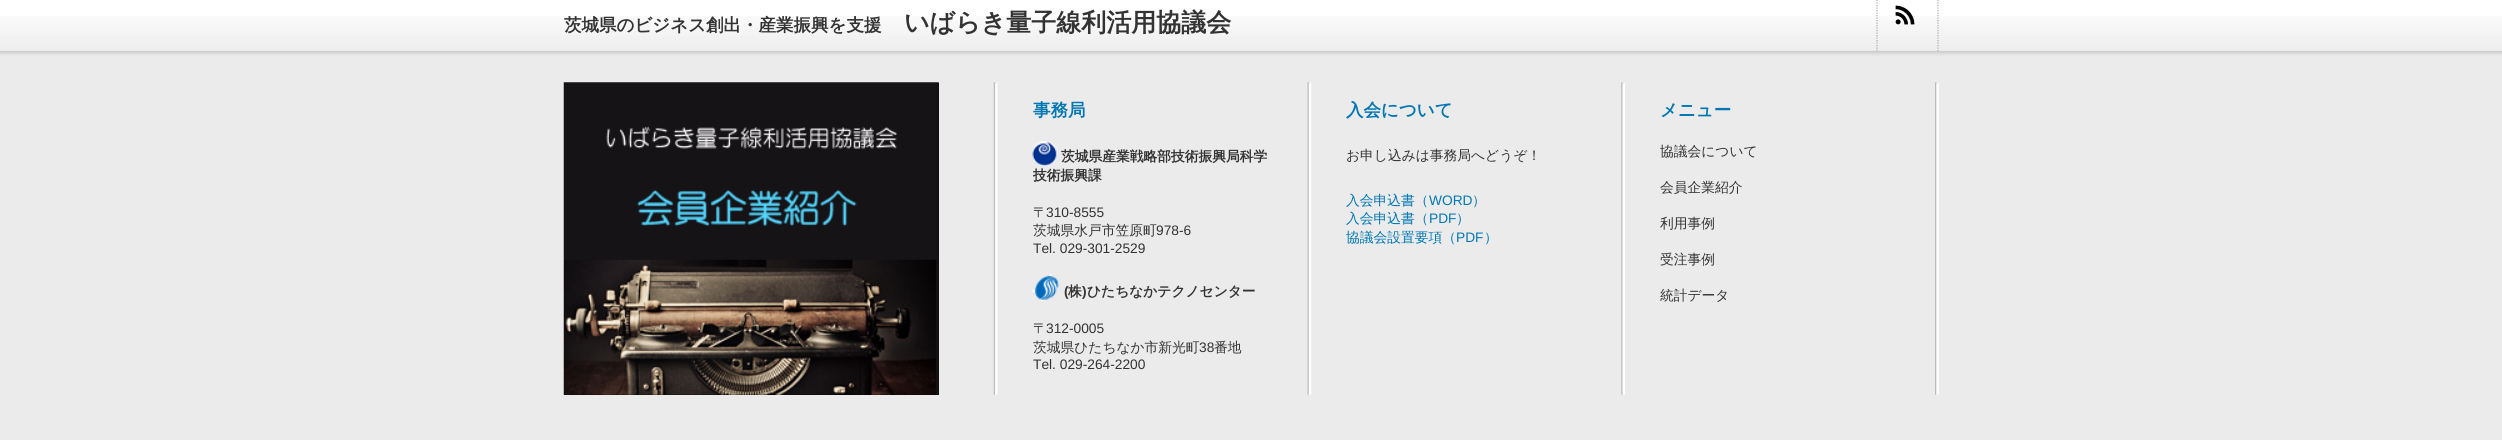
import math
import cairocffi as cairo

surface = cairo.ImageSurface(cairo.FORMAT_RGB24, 2502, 440)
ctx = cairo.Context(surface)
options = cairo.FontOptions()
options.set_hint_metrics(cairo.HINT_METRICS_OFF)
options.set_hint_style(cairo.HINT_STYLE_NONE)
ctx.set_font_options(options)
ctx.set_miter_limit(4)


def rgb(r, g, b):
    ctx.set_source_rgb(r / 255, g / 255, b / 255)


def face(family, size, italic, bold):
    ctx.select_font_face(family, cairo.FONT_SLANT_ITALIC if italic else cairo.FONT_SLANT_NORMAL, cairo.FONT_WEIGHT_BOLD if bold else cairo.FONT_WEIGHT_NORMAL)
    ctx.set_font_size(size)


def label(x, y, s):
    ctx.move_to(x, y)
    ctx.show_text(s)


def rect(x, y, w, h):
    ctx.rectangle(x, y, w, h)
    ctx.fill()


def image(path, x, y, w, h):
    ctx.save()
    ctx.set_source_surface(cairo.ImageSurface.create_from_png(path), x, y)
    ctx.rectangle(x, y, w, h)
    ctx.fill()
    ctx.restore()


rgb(255, 255, 255)
ctx.paint()
image('image0.png', 0, 16, 2502, 67)
face('WenQuanYi Zen Hei', 17.5, 0, 1)
rgb(51, 51, 51)
label(564, 31, '茨城県のビジネス創出・産業振興を支援')
face('WenQuanYi Zen Hei', 25, 0, 1)
label(904, 31, 'いばらき量子線利活用協議会')
ctx.new_path()
ctx.move_to(1938, -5)
ctx.line_to(1938, 51)
rgb(170, 170, 170)
ctx.set_line_width(1.2)
ctx.set_dash([1.25, 1.25])
ctx.stroke()
ctx.new_path()
ctx.move_to(1877, -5)
ctx.line_to(1877, 51)
ctx.stroke()
image('image1.png', 1895, 5, 20, 20)
rgb(235, 235, 235)
rect(0, 83, 2502, 357)
image('image2.png', 993, 82, 5, 313)
rgb(0, 0, 0)
rect(564, 83, 375, 312)
image('image3.png', 563, 82, 376, 313)
image('image4.png', 1307, 82, 5, 313)
face('WenQuanYi Zen Hei', 17.5, 0, 1)
rgb(0, 119, 179)
label(1033, 116, '事務局')
image('image5.png', 1032, 141, 26, 25)
face('WenQuanYi Zen Hei', 13.75, 0, 1)
rgb(51, 51, 51)
label(1061, 161, '茨城県産業戦略部技術振興局科学')
label(1033, 180, '技術振興課')
face('WenQuanYi Zen Hei Medium', 13.75, 0, 0)
label(1033, 217, '〒')
face('Liberation Sans', 13.75, 0, 0)
label(1046, 217, '310-8555')
face('WenQuanYi Zen Hei Medium', 13.75, 0, 0)
label(1033, 235, '茨城県水戸市笠原町')
face('Liberation Sans', 13.75, 0, 0)
label(1156, 235, '978-6')
label(1033, 253, 'Tel. 029-301-2529')
image('image6.png', 1032, 273, 27, 28)
face('Liberation Sans', 13.75, 0, 1)
label(1064, 296, '(')
face('WenQuanYi Zen Hei', 13.75, 0, 1)
label(1068, 296, '株')
face('Liberation Sans', 13.75, 0, 1)
label(1082, 296, ')')
face('WenQuanYi Zen Hei', 13.75, 0, 1)
label(1087, 296, 'ひたちなかテクノセンター')
face('WenQuanYi Zen Hei Medium', 13.75, 0, 0)
label(1033, 333, '〒')
face('Liberation Sans', 13.75, 0, 0)
label(1046, 333, '312-0005')
face('WenQuanYi Zen Hei Medium', 13.75, 0, 0)
label(1033, 352, '茨城県ひたちなか市新光町')
face('Liberation Sans', 13.75, 0, 0)
label(1199, 352, '38')
face('WenQuanYi Zen Hei Medium', 13.75, 0, 0)
label(1214, 352, '番地')
face('Liberation Sans', 13.75, 0, 0)
label(1033, 369, 'Tel. 029-264-2200')
image('image7.png', 1621, 82, 4, 313)
face('WenQuanYi Zen Hei', 17.5, 0, 1)
rgb(0, 119, 179)
label(1346, 116, '入会について')
face('WenQuanYi Zen Hei Medium', 13.75, 0, 0)
rgb(51, 51, 51)
label(1346, 160, 'お申し込みは事務局へどうぞ！')
rgb(0, 119, 179)
label(1346, 205, '入会申込書（')
face('Liberation Sans', 13.75, 0, 0)
label(1429, 205, 'WORD')
face('WenQuanYi Zen Hei Medium', 13.75, 0, 0)
label(1472, 205, '）')
label(1346, 223, '入会申込書（')
face('Liberation Sans', 13.75, 0, 0)
label(1429, 223, 'PDF')
face('WenQuanYi Zen Hei Medium', 13.75, 0, 0)
label(1456, 223, '）')
label(1346, 242, '協議会設置要項（')
face('Liberation Sans', 13.75, 0, 0)
label(1456, 242, 'PDF')
face('WenQuanYi Zen Hei Medium', 13.75, 0, 0)
label(1484, 242, '）')
image('image8.png', 1935, 82, 4, 313)
face('WenQuanYi Zen Hei', 17.5, 0, 1)
label(1660, 116, 'メニュー')
face('WenQuanYi Zen Hei Medium', 13.75, 0, 0)
rgb(51, 51, 51)
label(1660, 156, '協議会について')
label(1660, 192, '会員企業紹介')
label(1660, 228, '利用事例')
label(1660, 264, '受注事例')
label(1660, 300, '統計データ')
surface.write_to_png('render.png')
